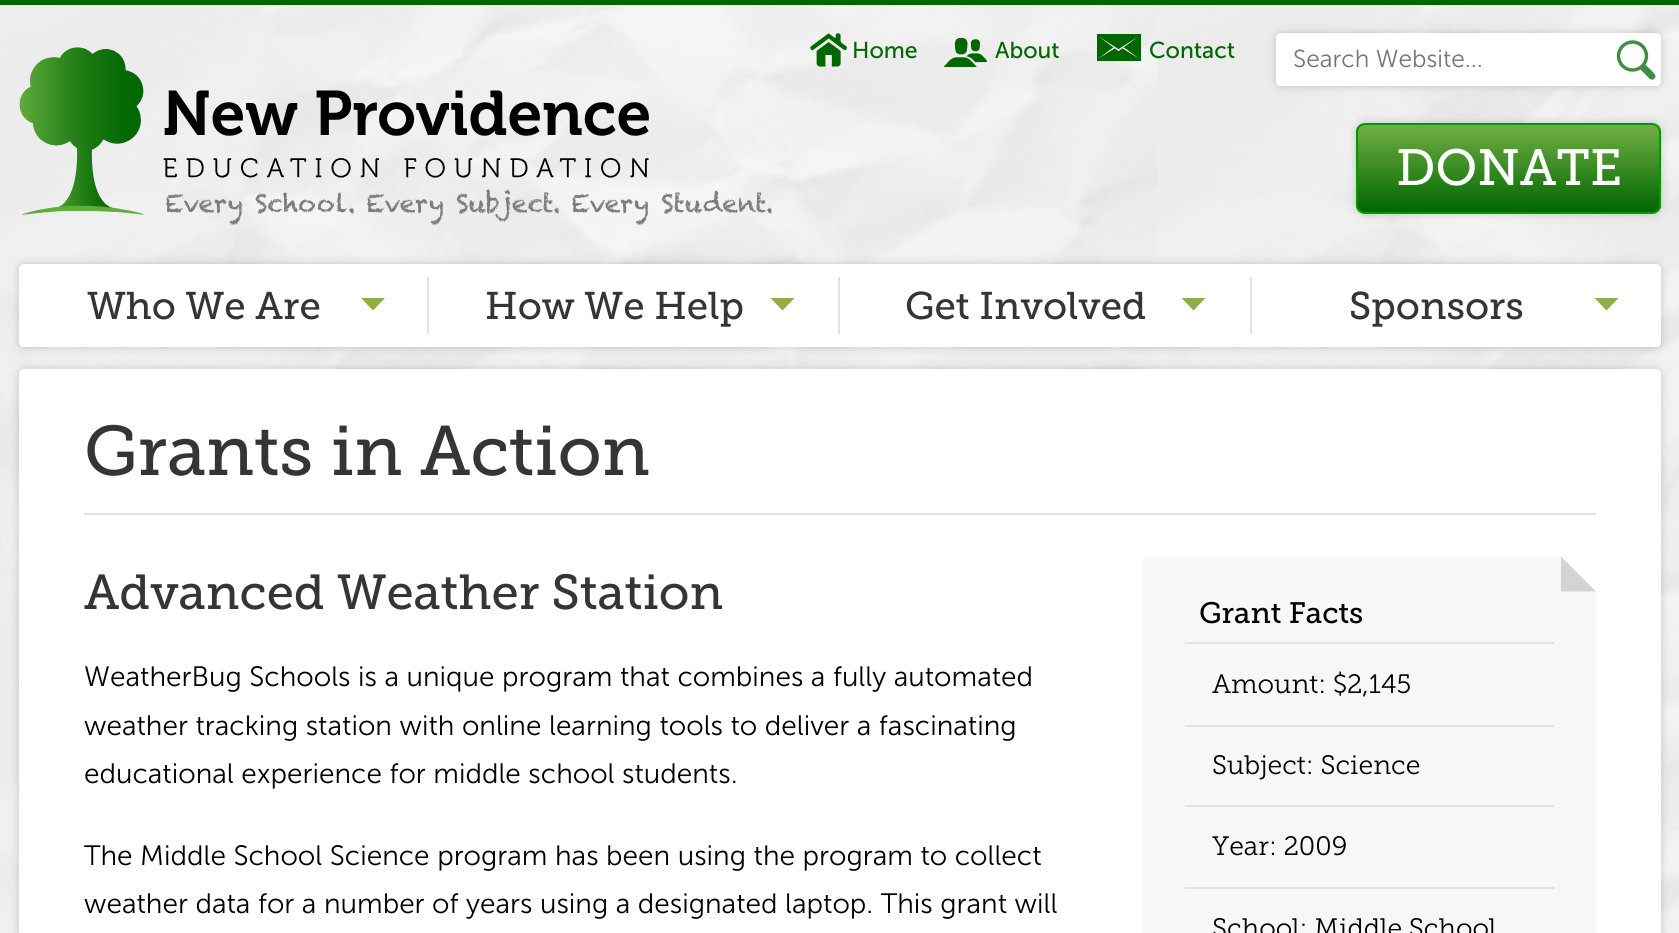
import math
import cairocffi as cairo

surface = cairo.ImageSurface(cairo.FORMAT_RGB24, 1679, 933)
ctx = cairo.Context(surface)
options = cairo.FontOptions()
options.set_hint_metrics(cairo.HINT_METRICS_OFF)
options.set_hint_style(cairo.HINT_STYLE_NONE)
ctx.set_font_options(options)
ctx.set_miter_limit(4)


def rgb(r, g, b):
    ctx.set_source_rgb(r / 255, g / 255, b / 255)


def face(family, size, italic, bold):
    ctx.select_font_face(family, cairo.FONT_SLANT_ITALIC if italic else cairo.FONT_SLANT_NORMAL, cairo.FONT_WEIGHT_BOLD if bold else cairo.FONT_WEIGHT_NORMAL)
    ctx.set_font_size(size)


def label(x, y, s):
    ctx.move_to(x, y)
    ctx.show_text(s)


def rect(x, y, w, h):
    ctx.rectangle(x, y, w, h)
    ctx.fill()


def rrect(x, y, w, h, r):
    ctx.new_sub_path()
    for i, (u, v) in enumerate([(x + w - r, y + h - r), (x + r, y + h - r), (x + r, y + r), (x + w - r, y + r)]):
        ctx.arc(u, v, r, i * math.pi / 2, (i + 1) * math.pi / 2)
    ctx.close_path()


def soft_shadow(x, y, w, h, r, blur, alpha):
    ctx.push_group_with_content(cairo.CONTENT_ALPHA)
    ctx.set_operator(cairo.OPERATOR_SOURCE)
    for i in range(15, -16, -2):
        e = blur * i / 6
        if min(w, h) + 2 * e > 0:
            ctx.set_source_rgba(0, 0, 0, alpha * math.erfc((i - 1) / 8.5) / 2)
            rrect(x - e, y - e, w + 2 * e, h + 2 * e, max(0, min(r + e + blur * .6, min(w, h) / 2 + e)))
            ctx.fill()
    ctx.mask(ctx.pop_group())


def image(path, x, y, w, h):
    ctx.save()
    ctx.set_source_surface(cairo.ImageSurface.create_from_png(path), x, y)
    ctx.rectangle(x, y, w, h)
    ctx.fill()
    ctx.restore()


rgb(255, 255, 255)
ctx.paint()
image('image0.png', 0, 5, 1679, 928)
rgb(0, 102, 0)
rect(0, 0, 1679, 5)
image('image1.png', 19, 47, 753, 179)
image('image2.png', 810, 33, 37, 34)
face('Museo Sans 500', 23, 0, 0)
label(852, 58, 'Home')
image('image3.png', 943, 37, 44, 30)
label(995, 58, 'About')
image('image4.png', 1097, 34, 44, 27)
label(1149, 58, 'Contact')
rgb(32, 29, 30)
soft_shadow(1356, 123, 305, 91, 9, 4.5, 0.22)
ctx.save()
rrect(1356, 123, 305, 91, 9)
ctx.clip()
gradient = cairo.LinearGradient(1509, 124, 1509, 212)
gradient.add_color_stop_rgba(0, 0.447, 0.686, 0.271, 1)
gradient.add_color_stop_rgba(1, 0, 0.4, 0, 1)
ctx.set_source(gradient)
rect(1356, 124, 305, 88)
ctx.restore()
rrect(1357, 124, 303, 89, 8)
rgb(0, 153, 0)
ctx.stroke()
face('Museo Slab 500', 50.75, 0, 0)
rgb(255, 255, 255)
label(1396, 185, 'DONATE')
rgb(32, 29, 30)
soft_shadow(1276, 33, 385, 53, 5, 4.5, 0.22)
rgb(255, 255, 255)
rrect(1276, 33, 385, 53, 5)
ctx.fill()
face('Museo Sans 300 Light', 24.5, 0, 0)
rgb(117, 117, 117)
label(1293, 67, 'Search Website...')
rgb(64, 140, 64)
ctx.new_path()
ctx.move_to(1644, 63.5)
ctx.line_to(1651, 70)
ctx.curve_to(1653, 72.5, 1657.5, 75.5, 1654.5, 78.5)
ctx.curve_to(1651.5, 82, 1648, 77, 1646, 75)
ctx.line_to(1639.5, 68.5)
ctx.curve_to(1641.5, 67, 1643, 65.5, 1644, 63.5)
ctx.close_path()
ctx.fill()
ctx.arc(1632.5, 56, 14, 0, 2 * math.pi)
ctx.set_line_width(3.4)
ctx.stroke()
rgb(32, 29, 30)
soft_shadow(19, 264, 1642, 83, 5, 4.5, 0.22)
rgb(255, 255, 255)
rrect(19, 264, 1642, 83, 5)
ctx.fill()
rgb(226, 226, 226)
rect(427, 277, 2, 57)
face('Museo Slab 500', 38.5, 0, 0)
rgb(53, 53, 53)
label(87, 319, 'Who We Are')
ctx.save()
ctx.rectangle(361, 298, 24, 14)
ctx.clip()
rgb(142, 175, 69)
ctx.new_path()
ctx.move_to(360.5, 297.5)
ctx.line_to(373, 310.5)
ctx.line_to(385.5, 297.5)
ctx.close_path()
ctx.fill()
ctx.restore()
rgb(226, 226, 226)
rect(838, 277, 2, 57)
rgb(53, 53, 53)
label(485, 319, 'How We Help')
ctx.save()
ctx.rectangle(770, 298, 26, 14)
ctx.clip()
rgb(142, 175, 69)
ctx.new_path()
ctx.move_to(770, 297.5)
ctx.line_to(782.5, 310.5)
ctx.line_to(795, 297.5)
ctx.close_path()
ctx.fill()
ctx.restore()
rgb(226, 226, 226)
rect(1250, 277, 2, 57)
rgb(53, 53, 53)
label(905, 319, 'Get Involved')
ctx.save()
ctx.rectangle(1181, 298, 25, 14)
ctx.clip()
rgb(142, 175, 69)
ctx.new_path()
ctx.move_to(1181, 297.5)
ctx.line_to(1193.5, 310.5)
ctx.line_to(1206, 297.5)
ctx.close_path()
ctx.fill()
ctx.restore()
label(1349, 319, 'Sponsors')
ctx.save()
ctx.rectangle(1594, 298, 25, 14)
ctx.clip()
rgb(142, 175, 69)
ctx.new_path()
ctx.move_to(1594, 297.5)
ctx.line_to(1606.5, 310.5)
ctx.line_to(1619, 297.5)
ctx.close_path()
ctx.fill()
ctx.restore()
rgb(32, 29, 30)
soft_shadow(19, 369, 1642, 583, 5, 4.5, 0.22)
rgb(255, 255, 255)
rrect(19, 369, 1642, 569, 5)
ctx.fill()
rgb(226, 226, 226)
rect(84, 513, 1512, 2)
face('Museo Slab 500', 70, 0, 0)
rgb(53, 53, 53)
label(84, 475, 'Grants in Action')
face('Museo Slab 500', 49, 0, 0)
label(84, 609, 'Advanced Weather Station')
face('Museo Sans 300 Light', 28, 0, 0)
rgb(0, 0, 0)
label(84, 686, 'WeatherBug Schools is a unique program that combines a fully automated')
label(84, 735, 'weather tracking station with online learning tools to deliver a fascinating')
label(84, 783, 'educational experience for middle school students.')
label(84, 865, 'The Middle School Science program has been using the program to collect')
label(84, 913, 'weather data for a number of years using a designated laptop. This grant will')
rgb(247, 247, 247)
rect(1143, 557, 453, 376)
rgb(255, 255, 255)
rect(1561, 557, 35, 35)
rgb(212, 212, 212)
ctx.new_path()
ctx.move_to(1596, 591.5)
ctx.line_to(1561, 591.5)
ctx.line_to(1561, 556.5)
ctx.fill()
rgb(226, 226, 226)
rect(1185, 642, 369, 2)
face('Museo Slab 500', 29.5, 0, 0)
rgb(0, 0, 0)
label(1199, 623, 'Grant Facts')
rgb(226, 226, 226)
rect(1185, 725, 369, 2)
face('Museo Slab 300 Light', 26.6, 0, 0)
rgb(0, 0, 0)
label(1212, 693, 'Amount: $2,145')
rgb(226, 226, 226)
rect(1185, 805, 369, 2)
rgb(0, 0, 0)
label(1212, 774, 'Subject: Science')
rgb(226, 226, 226)
rect(1185, 887, 369, 2)
rgb(0, 0, 0)
label(1212, 855, 'Year: 2009')
label(1212, 937, 'School: Middle School')
surface.write_to_png('render.png')
